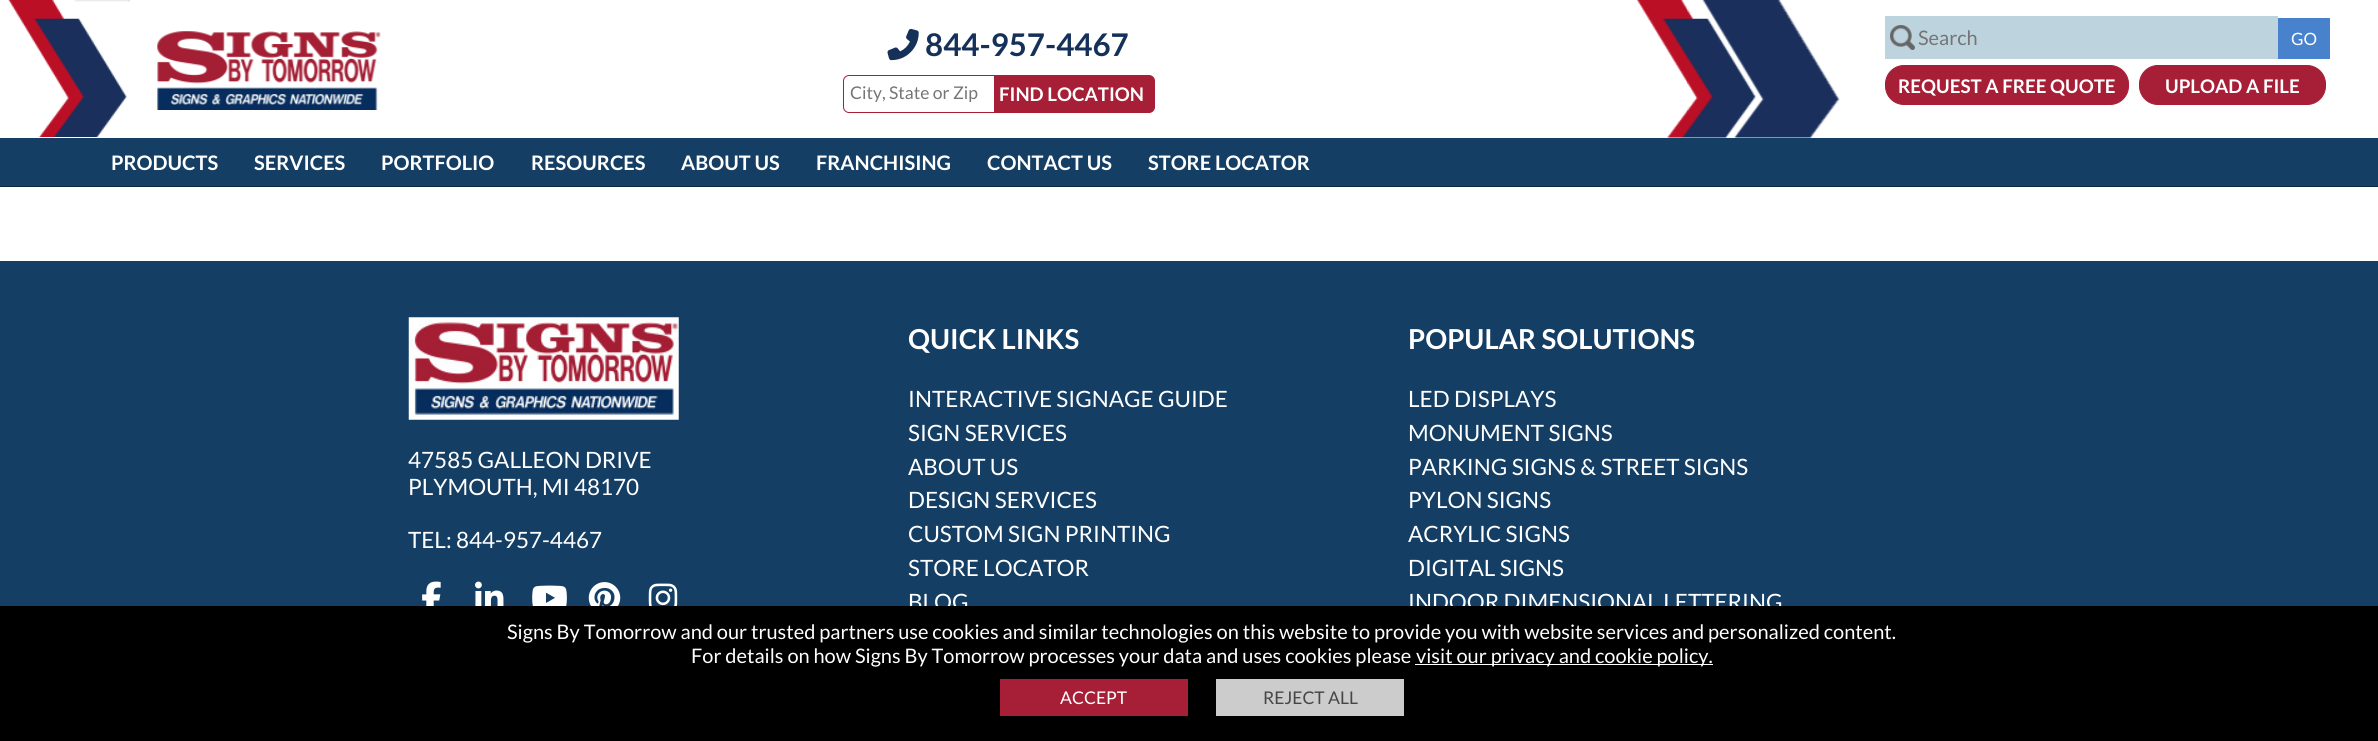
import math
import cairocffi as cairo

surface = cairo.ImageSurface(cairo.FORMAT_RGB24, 2378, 741)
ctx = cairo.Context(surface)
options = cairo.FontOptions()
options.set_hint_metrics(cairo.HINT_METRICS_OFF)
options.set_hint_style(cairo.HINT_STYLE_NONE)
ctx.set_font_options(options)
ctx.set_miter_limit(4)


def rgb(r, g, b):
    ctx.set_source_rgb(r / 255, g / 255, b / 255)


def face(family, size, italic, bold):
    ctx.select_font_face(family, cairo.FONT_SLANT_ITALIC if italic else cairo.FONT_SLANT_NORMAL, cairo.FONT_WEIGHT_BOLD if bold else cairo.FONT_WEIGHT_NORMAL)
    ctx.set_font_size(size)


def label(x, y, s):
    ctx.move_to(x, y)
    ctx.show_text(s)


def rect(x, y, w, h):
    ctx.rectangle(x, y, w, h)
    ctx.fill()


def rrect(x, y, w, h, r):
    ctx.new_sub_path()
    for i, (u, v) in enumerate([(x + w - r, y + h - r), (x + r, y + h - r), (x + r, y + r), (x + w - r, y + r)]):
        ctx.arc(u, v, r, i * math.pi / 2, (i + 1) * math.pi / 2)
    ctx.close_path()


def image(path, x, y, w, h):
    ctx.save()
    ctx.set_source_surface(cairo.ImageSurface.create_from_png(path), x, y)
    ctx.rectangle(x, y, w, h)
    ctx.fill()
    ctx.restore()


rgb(255, 255, 255)
ctx.paint()
rgb(12, 39, 63)
rect(0, 186, 2378, 1)
image('image0.png', 8, 0, 122, 137)
image('image1.png', 157, 31, 224, 79)
image('image2.png', 887, 28, 32, 33)
face('Lato', 31.25, 0, 1)
rgb(21, 49, 90)
label(925, 56, '844-957-4467')
ctx.new_path()
ctx.move_to(849, 75.5)
ctx.line_to(994.5, 75.5)
ctx.line_to(994.5, 112.5)
ctx.line_to(849, 112.5)
ctx.curve_to(846, 112.5, 843.5, 110, 843.5, 107)
ctx.line_to(843.5, 81)
ctx.curve_to(843.5, 78, 846, 75.5, 849, 75.5)
ctx.close_path()
rgb(167, 31, 55)
ctx.set_line_width(1)
ctx.stroke()
face('Lato', 17.5, 0, 0)
rgb(117, 117, 117)
label(850, 99, 'City, State or Zip')
rgb(167, 31, 55)
ctx.new_path()
ctx.move_to(995.5, 75.5)
ctx.line_to(1149, 75.5)
ctx.curve_to(1152, 75.5, 1154.5, 78, 1154.5, 81)
ctx.line_to(1154.5, 107)
ctx.curve_to(1154.5, 110, 1152, 112.5, 1149, 112.5)
ctx.line_to(995.5, 112.5)
ctx.close_path()
ctx.fill_preserve()
ctx.stroke()
face('Lato', 18.75, 0, 1)
rgb(255, 255, 255)
label(999, 101, 'FIND LOCATION')
image('image3.png', 1637, 0, 203, 138)
rgb(189, 212, 222)
rect(1885, 16, 393, 43)
image('image4.png', 1890, 25, 25, 25)
face('Lato', 20, 0, 0)
rgb(117, 117, 117)
label(1918, 45, 'Search')
rgb(72, 130, 204)
rect(2278, 18, 52, 41)
face('Lato', 17, 0, 0)
rgb(255, 255, 255)
label(2291, 45, 'GO')
rgb(167, 31, 55)
rrect(1885.5, 65.5, 243, 39, 18.5)
ctx.fill_preserve()
ctx.stroke()
face('Lato', 18.75, 0, 1)
rgb(255, 255, 255)
label(1898, 93, 'REQUEST A FREE QUOTE')
rgb(167, 31, 55)
rrect(2139.5, 65.5, 186, 39, 18.5)
ctx.fill_preserve()
ctx.stroke()
rgb(255, 255, 255)
label(2165, 93, 'UPLOAD A FILE')
rgb(20, 62, 100)
rect(0, 138, 2378, 48)
face('Lato', 20, 0, 1)
rgb(255, 255, 255)
label(111, 170, 'PRODUCTS')
label(254, 170, 'SERVICES')
label(381, 170, 'PORTFOLIO')
label(531, 170, 'RESOURCES')
label(681, 170, 'ABOUT US')
label(816, 170, 'FRANCHISING')
label(987, 170, 'CONTACT US')
label(1148, 170, 'STORE LOCATOR')
rgb(20, 62, 100)
rect(0, 261, 2378, 345)
image('image5.png', 408, 317, 271, 103)
face('Lato', 22.5, 0, 0)
rgb(255, 255, 255)
label(408, 468, '47585 GALLEON DRIVE')
label(408, 495, 'PLYMOUTH, MI 48170')
label(408, 548, 'TEL: 844-957-4467')
image('image6.png', 422, 581, 19, 25)
image('image7.png', 475, 581, 29, 25)
image('image8.png', 532, 585, 35, 21)
image('image9.png', 588, 582, 33, 24)
image('image10.png', 648, 583, 30, 23)
face('Lato', 27.5, 0, 1)
label(908, 349, 'QUICK LINKS')
face('Lato', 22.5, 0, 0)
label(908, 407, 'INTERACTIVE SIGNAGE GUIDE')
label(908, 441, 'SIGN SERVICES')
label(908, 475, 'ABOUT US')
label(908, 508, 'DESIGN SERVICES')
label(908, 542, 'CUSTOM SIGN PRINTING')
label(908, 576, 'STORE LOCATOR')
label(908, 610, 'BLOG')
face('Lato', 27.5, 0, 1)
label(1408, 349, 'POPULAR SOLUTIONS')
face('Lato', 22.5, 0, 0)
label(1408, 407, 'LED DISPLAYS')
label(1408, 441, 'MONUMENT SIGNS')
label(1408, 475, 'PARKING SIGNS & STREET SIGNS')
label(1408, 508, 'PYLON SIGNS')
label(1408, 542, 'ACRYLIC SIGNS')
label(1408, 576, 'DIGITAL SIGNS')
label(1408, 610, 'INDOOR DIMENSIONAL LETTERING')
rgb(0, 0, 0)
rect(0, 606, 2378, 135)
face('Lato', 20, 0, 0)
rgb(255, 255, 255)
label(507, 639, 'Signs By Tomorrow and our trusted partners use cookies and similar technologies on this website to provide you with website services and personalized content.')
label(691, 663, 'For details on how Signs By Tomorrow processes your data and uses cookies please')
rect(1415, 664, 298, 1)
label(1416, 663, 'visit our privacy and cookie policy.')
rgb(167, 31, 55)
rect(1000, 679, 188, 37)
face('Lato', 17.5, 0, 0)
rgb(255, 255, 255)
label(1060, 704, 'ACCEPT')
rgb(204, 204, 204)
rect(1216, 679, 188, 37)
rgb(70, 70, 70)
label(1263, 704, 'REJECT ALL')
surface.write_to_png('render.png')
